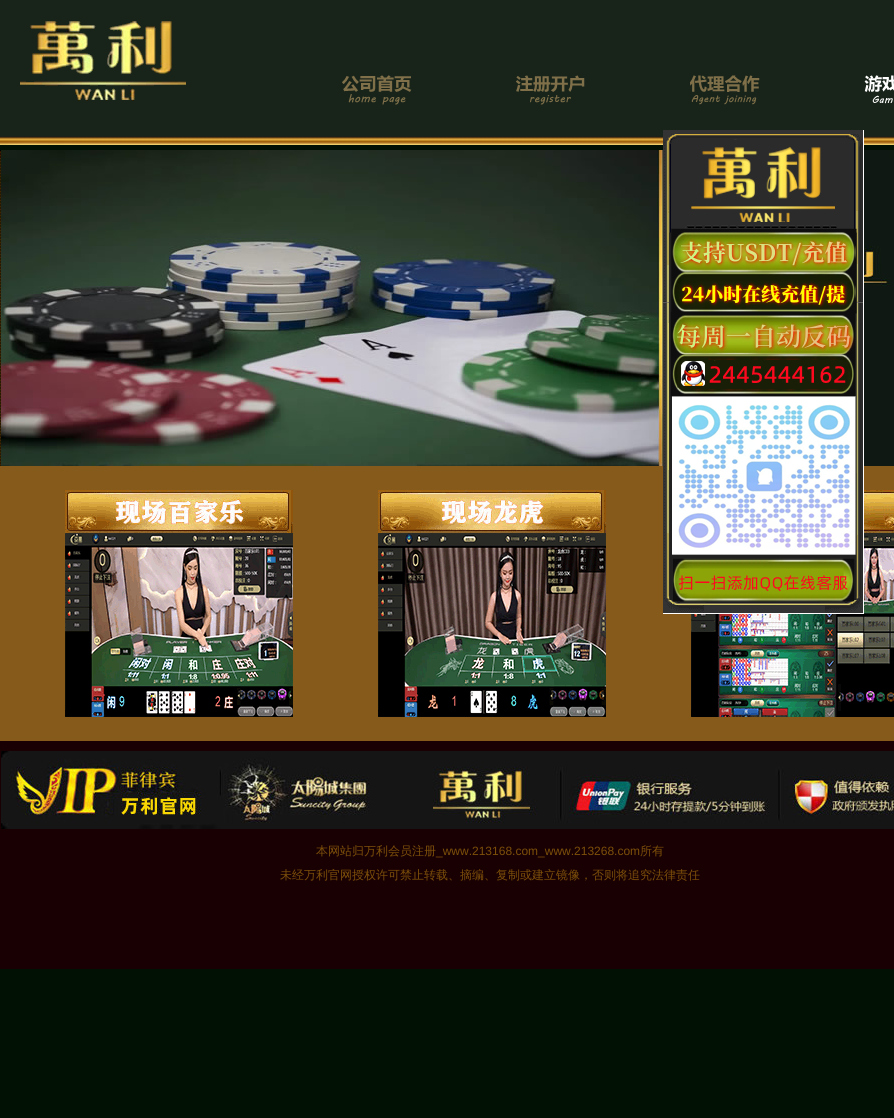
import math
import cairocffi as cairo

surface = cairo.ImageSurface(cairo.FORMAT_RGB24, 894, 1118)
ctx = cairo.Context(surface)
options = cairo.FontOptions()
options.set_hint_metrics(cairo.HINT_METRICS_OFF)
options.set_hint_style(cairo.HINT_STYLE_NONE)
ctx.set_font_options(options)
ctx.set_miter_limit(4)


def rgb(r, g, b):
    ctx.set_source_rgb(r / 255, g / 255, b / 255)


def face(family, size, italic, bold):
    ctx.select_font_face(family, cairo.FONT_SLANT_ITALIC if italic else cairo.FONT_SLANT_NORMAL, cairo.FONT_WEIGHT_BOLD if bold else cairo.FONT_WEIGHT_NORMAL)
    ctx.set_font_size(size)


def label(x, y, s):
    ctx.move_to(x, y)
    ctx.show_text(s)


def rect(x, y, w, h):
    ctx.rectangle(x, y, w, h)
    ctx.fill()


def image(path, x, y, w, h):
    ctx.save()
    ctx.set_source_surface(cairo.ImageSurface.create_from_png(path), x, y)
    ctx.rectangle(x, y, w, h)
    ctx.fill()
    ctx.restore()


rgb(1, 17, 4)
ctx.paint()
image('image0.png', 0, 0, 894, 145)
image('image1.png', 0, 140, 72, 5)
image('image2.png', 20, 21, 166, 80)
image('image3.png', 342, 75, 70, 30)
image('image4.png', 516, 75, 69, 30)
image('image5.png', 690, 75, 70, 30)
image('image6.png', 864, 75, 30, 29)
rgb(134, 90, 27)
rect(0, 466, 894, 275)
image('image9.png', 1, 150, 893, 316)
image('image12.png', 691, 490, 203, 227)
image('image7.png', 663, 130, 201, 484)
image('image8.png', 0, 150, 1, 316)
image('image10.png', 65, 490, 228, 227)
image('image11.png', 378, 490, 228, 227)
rgb(25, 0, 3)
rect(0, 741, 894, 228)
image('image13.png', 1, 751, 893, 78)
face('WenQuanYi Zen Hei Medium', 12, 0, 0)
rgb(124, 79, 9)
label(316, 855, '本网站归万利会员注册')
face('Liberation Sans', 12, 0, 0)
label(436, 855, '_www.213168.com_www.213268.com')
face('WenQuanYi Zen Hei Medium', 12, 0, 0)
label(640, 855, '所有')
label(280, 879, '未经万利官网授权许可禁止转载、摘编、复制或建立镜像，否则将追究法律责任')
surface.write_to_png('render.png')
